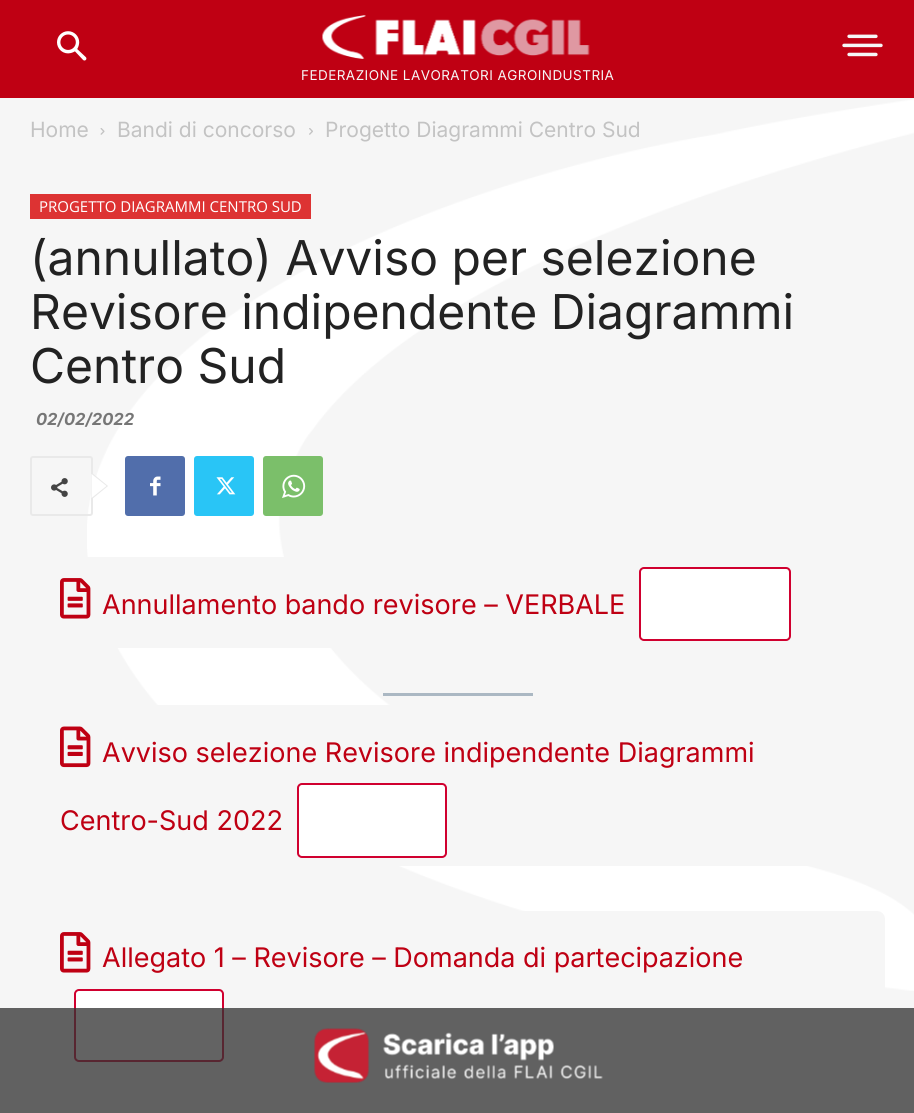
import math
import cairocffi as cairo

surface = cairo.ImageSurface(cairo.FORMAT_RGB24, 914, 1113)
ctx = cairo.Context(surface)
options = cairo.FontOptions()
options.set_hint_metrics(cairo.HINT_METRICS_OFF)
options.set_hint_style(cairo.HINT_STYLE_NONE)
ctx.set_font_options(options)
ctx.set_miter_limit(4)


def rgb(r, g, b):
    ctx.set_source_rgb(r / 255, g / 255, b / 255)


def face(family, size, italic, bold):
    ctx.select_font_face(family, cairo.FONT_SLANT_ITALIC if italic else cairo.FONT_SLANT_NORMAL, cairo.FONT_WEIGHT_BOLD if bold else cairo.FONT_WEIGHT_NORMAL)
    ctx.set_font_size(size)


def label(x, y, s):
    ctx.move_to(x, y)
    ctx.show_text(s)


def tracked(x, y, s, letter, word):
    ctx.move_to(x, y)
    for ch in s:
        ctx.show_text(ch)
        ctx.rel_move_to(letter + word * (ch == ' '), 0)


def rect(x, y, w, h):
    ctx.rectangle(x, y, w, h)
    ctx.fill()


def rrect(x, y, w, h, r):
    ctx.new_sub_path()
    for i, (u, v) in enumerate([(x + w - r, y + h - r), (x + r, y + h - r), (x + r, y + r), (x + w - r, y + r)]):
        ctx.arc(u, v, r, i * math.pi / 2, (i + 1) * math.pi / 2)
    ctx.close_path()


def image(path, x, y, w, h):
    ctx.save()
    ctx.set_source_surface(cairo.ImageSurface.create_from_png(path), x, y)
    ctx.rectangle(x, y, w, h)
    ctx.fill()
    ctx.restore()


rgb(246, 246, 246)
ctx.paint()
rgb(191, 0, 19)
rect(0, 0, 914, 98)
image('image0.png', 57, 31, 30, 30)
image('image1.png', 842, 34, 41, 23)
image('image2.png', 322, 15, 268, 44)
face('Inter', 13.5, 0, 0)
rgb(246, 246, 246)
tracked(301, 80, 'FEDERAZIONE LAVORATORI AGROINDUSTRIA', 0.45, 0)
image('image12.png', 87, 99, 827, 892)
face('Inter', 21, 0, 0)
rgb(195, 195, 195)
label(30, 137, 'Home')
image('image3.png', 100, 128, 5, 7)
label(117, 137, 'Bandi di concorso')
image('image4.png', 309, 128, 4, 7)
label(325, 137, 'Progetto Diagrammi Centro Sud')
rgb(221, 51, 51)
rect(30, 194, 281, 25)
face('Open Sans', 15, 0, 0)
rgb(255, 255, 255)
label(39, 212, 'PROGETTO DIAGRAMMI CENTRO SUD')
face('Inter', 48, 0, 0)
rgb(34, 34, 34)
label(30, 275, '(annullato) Avviso per selezione')
label(30, 329, 'Revisore indipendente Diagrammi')
label(30, 383, 'Centro Sud')
face('Inter', 16.5, 1, 1)
rgb(118, 118, 118)
label(36, 425, '02/02/2022')
rrect(31, 457, 61, 58, 2)
rgb(233, 233, 233)
ctx.stroke()
ctx.new_path()
ctx.move_to(91.5, 499.5)
ctx.line_to(91.5, 472.5)
ctx.line_to(108, 486)
ctx.close_path()
ctx.fill()
image('image5.png', 51, 478, 17, 19)
rgb(255, 255, 255)
ctx.new_path()
ctx.move_to(91.5, 498)
ctx.line_to(91.5, 474)
ctx.line_to(106.5, 486)
ctx.close_path()
ctx.fill()
rgb(81, 110, 171)
rrect(125, 456, 60, 60, 3)
ctx.fill()
image('image6.png', 150, 476, 11, 20)
rgb(41, 197, 246)
rrect(194, 456, 60, 60, 3)
ctx.fill()
image('image7.png', 216, 477, 20, 18)
rgb(123, 191, 106)
rrect(263, 456, 60, 60, 3)
ctx.fill()
image('image8.png', 282, 474, 24, 24)
rgb(246, 246, 246)
rrect(30, 557, 855, 91, 8)
ctx.fill()
image('image9.png', 60, 578, 31, 41)
face('Inter', 27, 0, 0)
rgb(191, 0, 19)
label(102, 614, 'Annullamento bando revisore – VERBALE')
rgb(255, 255, 255)
rrect(640, 568, 150, 72, 4)
ctx.fill_preserve()
rgb(208, 0, 47)
ctx.stroke()
rgb(171, 184, 195)
rect(383, 693, 150, 3)
rgb(246, 246, 246)
rrect(30, 705, 855, 161, 8)
ctx.fill()
image('image10.png', 60, 726, 31, 42)
rgb(191, 0, 19)
label(102, 762, 'Avviso selezione Revisore indipendente Diagrammi')
label(60, 830, 'Centro-Sud 2022')
rgb(255, 255, 255)
rrect(298, 784, 148, 73, 4)
ctx.fill_preserve()
rgb(208, 0, 47)
ctx.stroke()
rgb(246, 246, 246)
rrect(30, 911, 855, 159, 8)
ctx.fill()
image('image9.png', 60, 932, 31, 41)
rgb(191, 0, 19)
label(102, 967, 'Allegato 1 – Revisore – Domanda di partecipazione')
rgb(255, 255, 255)
rrect(75, 990, 148, 71, 4)
ctx.fill_preserve()
rgb(208, 0, 47)
ctx.stroke()
ctx.set_source_rgba(0.2, 0.2, 0.2, 0.76)
rect(0, 1008, 914, 105)
image('image11.png', 314, 1028, 289, 55)
surface.write_to_png('render.png')
